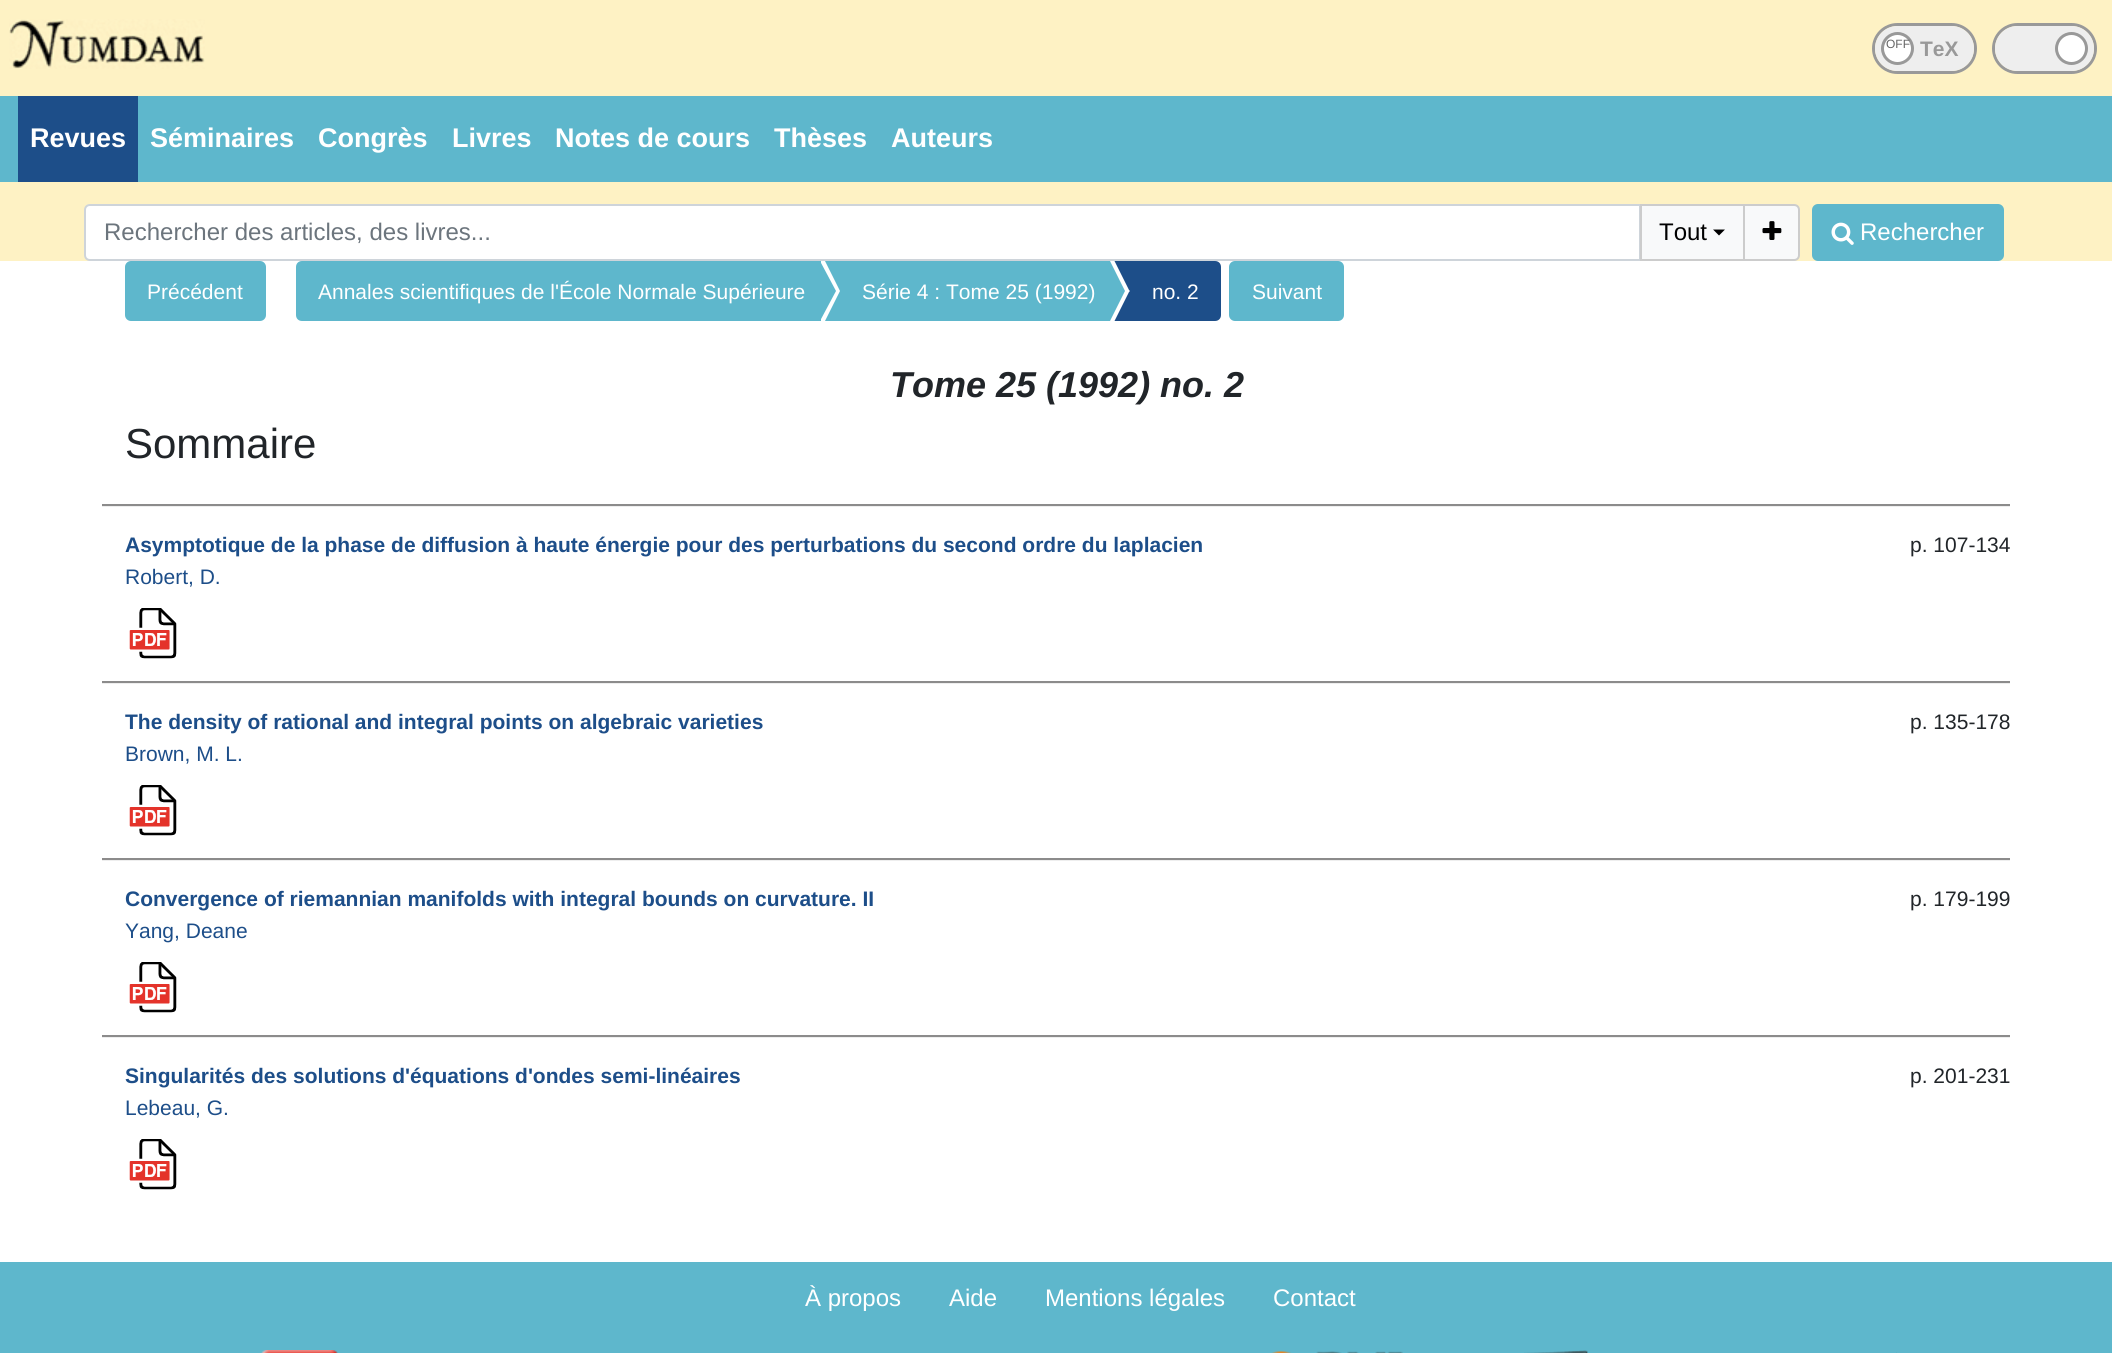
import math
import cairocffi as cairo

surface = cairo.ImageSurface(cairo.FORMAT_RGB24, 2112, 1353)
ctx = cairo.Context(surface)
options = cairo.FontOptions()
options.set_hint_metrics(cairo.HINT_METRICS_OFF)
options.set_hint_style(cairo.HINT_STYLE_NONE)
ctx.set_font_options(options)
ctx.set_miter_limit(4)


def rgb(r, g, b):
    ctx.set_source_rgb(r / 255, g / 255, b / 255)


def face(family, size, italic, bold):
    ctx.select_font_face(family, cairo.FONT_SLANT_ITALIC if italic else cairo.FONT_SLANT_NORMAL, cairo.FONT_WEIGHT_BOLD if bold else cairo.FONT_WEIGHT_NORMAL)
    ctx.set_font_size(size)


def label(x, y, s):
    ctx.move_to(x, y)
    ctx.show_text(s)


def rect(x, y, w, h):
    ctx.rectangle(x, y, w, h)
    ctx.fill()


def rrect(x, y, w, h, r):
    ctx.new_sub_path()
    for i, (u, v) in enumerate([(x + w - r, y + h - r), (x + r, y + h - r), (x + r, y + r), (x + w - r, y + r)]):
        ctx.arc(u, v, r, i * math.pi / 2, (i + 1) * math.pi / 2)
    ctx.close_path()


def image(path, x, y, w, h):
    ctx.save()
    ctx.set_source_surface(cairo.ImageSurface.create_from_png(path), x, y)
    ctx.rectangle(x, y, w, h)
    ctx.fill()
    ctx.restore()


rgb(255, 255, 255)
ctx.paint()
rgb(254, 242, 196)
rect(0, 0, 2112, 96)
image('image0.png', 9, 19, 196, 50)
rrect(1873.5, 24.5, 102, 48, 24)
rgb(153, 153, 153)
ctx.set_line_width(3)
ctx.stroke()
rgb(238, 238, 238)
rrect(1875, 26, 99, 45, 22.5)
ctx.fill()
rgb(255, 255, 255)
ctx.arc(1897.5, 48.5, 15, 0, 2 * math.pi)
ctx.fill_preserve()
rgb(153, 153, 153)
ctx.stroke()
face('Liberation Sans', 12, 0, 0)
rgb(102, 102, 102)
label(1886, 48, 'OFF')
face('Liberation Sans', 21, 0, 1)
rgb(153, 153, 153)
label(1920, 56, 'TeX')
rrect(1993.5, 24.5, 102, 48, 24)
ctx.stroke()
rgb(238, 238, 238)
rrect(1995, 26, 99, 45, 22.5)
ctx.fill()
rgb(255, 255, 255)
ctx.arc(2071.5, 48.5, 15, 0, 2 * math.pi)
ctx.fill_preserve()
rgb(153, 153, 153)
ctx.stroke()
rgb(94, 183, 204)
rect(0, 96, 2112, 86)
rgb(29, 78, 137)
rect(18, 96, 120, 86)
face('Liberation Sans', 27, 0, 1)
rgb(255, 255, 255)
label(30, 147, 'Revues')
label(150, 147, 'Séminaires')
label(318, 147, 'Congrès')
label(452, 147, 'Livres')
label(555, 147, 'Notes de cours')
label(774, 147, 'Thèses')
label(891, 147, 'Auteurs')
rgb(254, 242, 196)
rect(0, 182, 2112, 79)
rgb(255, 255, 255)
ctx.new_path()
ctx.move_to(90, 205)
ctx.line_to(1640, 205)
ctx.line_to(1640, 260)
ctx.line_to(90, 260)
ctx.curve_to(87, 260, 85, 258, 85, 255)
ctx.line_to(85, 210)
ctx.curve_to(85, 207, 87, 205, 90, 205)
ctx.close_path()
ctx.fill_preserve()
rgb(206, 212, 218)
ctx.set_line_width(2)
ctx.stroke()
face('Liberation Sans', 24, 0, 0)
rgb(108, 117, 125)
label(104, 240, 'Rechercher des articles, des livres...')
rgb(248, 249, 250)
ctx.rectangle(1641, 205, 103, 55)
ctx.fill_preserve()
rgb(204, 204, 204)
ctx.stroke()
rgb(0, 0, 0)
label(1659, 240, 'Tout')
ctx.new_path()
ctx.move_to(1713, 229.5)
ctx.line_to(1725, 229.5)
ctx.line_to(1719, 235.5)
ctx.close_path()
ctx.fill()
rgb(248, 249, 250)
ctx.new_path()
ctx.move_to(1744, 205)
ctx.line_to(1794, 205)
ctx.curve_to(1797, 205, 1799, 207, 1799, 210)
ctx.line_to(1799, 255)
ctx.curve_to(1799, 258, 1797, 260, 1794, 260)
ctx.line_to(1744, 260)
ctx.close_path()
ctx.fill_preserve()
rgb(204, 204, 204)
ctx.stroke()
image('image1.png', 1762, 221, 20, 19)
rgb(94, 183, 204)
rrect(1813, 205, 190, 55, 5)
ctx.fill_preserve()
ctx.stroke()
image('image2.png', 1831, 222, 23, 23)
rgb(255, 255, 255)
label(1860, 240, 'Rechercher')
rgb(94, 183, 204)
rrect(125, 261, 141, 60, 6)
ctx.fill()
face('Liberation Sans', 21, 0, 0)
rgb(255, 255, 255)
label(147, 299, 'Précédent')
rgb(94, 183, 204)
ctx.new_path()
ctx.move_to(302, 261)
ctx.line_to(821, 261)
ctx.line_to(821, 321)
ctx.line_to(302, 321)
ctx.curve_to(298.5, 321, 296, 318.5, 296, 315)
ctx.line_to(296, 267)
ctx.curve_to(296, 263.5, 298.5, 261, 302, 261)
ctx.close_path()
ctx.fill()
rgb(255, 255, 255)
label(318, 299, 'Annales scientifiques de l\'École Normale Supérieure')
rgb(94, 183, 204)
ctx.new_path()
ctx.move_to(820, 321)
ctx.line_to(820, 261)
ctx.line_to(836, 291)
ctx.close_path()
ctx.fill()
rect(855, 261, 255, 60)
ctx.new_path()
ctx.move_to(825, 261)
ctx.line_to(855, 261)
ctx.line_to(840, 291)
ctx.close_path()
ctx.fill()
rect(840, 261, 15, 60)
ctx.new_path()
ctx.move_to(855, 321)
ctx.line_to(825, 321)
ctx.line_to(840, 291)
ctx.close_path()
ctx.fill()
rgb(255, 255, 255)
label(862, 299, 'Série 4 : Tome 25 (1992)')
rgb(94, 183, 204)
ctx.new_path()
ctx.move_to(1110, 321)
ctx.line_to(1110, 261)
ctx.line_to(1125, 291)
ctx.close_path()
ctx.fill()
rgb(29, 78, 137)
ctx.new_path()
ctx.move_to(1145, 261)
ctx.line_to(1215, 261)
ctx.curve_to(1218.5, 261, 1221, 263.5, 1221, 267)
ctx.line_to(1221, 315)
ctx.curve_to(1221, 318.5, 1218.5, 321, 1215, 321)
ctx.line_to(1145, 321)
ctx.close_path()
ctx.fill()
ctx.new_path()
ctx.move_to(1114.5, 261)
ctx.line_to(1144.5, 261)
ctx.line_to(1129.5, 291)
ctx.close_path()
ctx.fill()
rect(1130, 261, 15, 60)
ctx.new_path()
ctx.move_to(1144.5, 321)
ctx.line_to(1114.5, 321)
ctx.line_to(1129.5, 291)
ctx.close_path()
ctx.fill()
rgb(255, 255, 255)
label(1152, 299, 'no. 2')
rgb(94, 183, 204)
rrect(1229, 261, 115, 60, 6)
ctx.fill()
rgb(255, 255, 255)
label(1252, 299, 'Suivant')
face('Liberation Sans', 36, 1, 1)
rgb(33, 37, 41)
label(890, 397, 'Tome 25 (1992) no. 2')
face('Liberation Sans', 42, 0, 0)
label(125, 458, 'Sommaire')
rgb(238, 238, 238)
rect(102, 506, 1908, 1)
rgb(140, 139, 139)
rect(102, 504, 1908, 2)
face('Liberation Sans', 21, 0, 1)
rgb(29, 78, 137)
label(125, 552, 'Asymptotique de la phase de diffusion à haute énergie pour des perturbations du second ordre du laplacien')
face('Liberation Sans', 21, 0, 0)
label(125, 584, 'Robert, D.')
image('image3.png', 129, 608, 48, 51)
rgb(33, 37, 41)
label(1910, 552, 'p. 107-134')
rgb(238, 238, 238)
rect(102, 683, 1908, 1)
rgb(140, 139, 139)
rect(102, 681, 1908, 2)
face('Liberation Sans', 21, 0, 1)
rgb(29, 78, 137)
label(125, 729, 'The density of rational and integral points on algebraic varieties')
face('Liberation Sans', 21, 0, 0)
label(125, 761, 'Brown, M. L.')
image('image3.png', 129, 785, 48, 51)
rgb(33, 37, 41)
label(1910, 729, 'p. 135-178')
rgb(238, 238, 238)
rect(102, 860, 1908, 1)
rgb(140, 139, 139)
rect(102, 858, 1908, 2)
face('Liberation Sans', 21, 0, 1)
rgb(29, 78, 137)
label(125, 906, 'Convergence of riemannian manifolds with integral bounds on curvature. II')
face('Liberation Sans', 21, 0, 0)
label(125, 938, 'Yang, Deane')
image('image3.png', 129, 962, 48, 51)
rgb(33, 37, 41)
label(1910, 906, 'p. 179-199')
rgb(238, 238, 238)
rect(102, 1037, 1908, 1)
rgb(140, 139, 139)
rect(102, 1035, 1908, 2)
face('Liberation Sans', 21, 0, 1)
rgb(29, 78, 137)
label(125, 1083, 'Singularités des solutions d\'équations d\'ondes semi-linéaires')
face('Liberation Sans', 21, 0, 0)
label(125, 1115, 'Lebeau, G.')
image('image3.png', 129, 1139, 48, 51)
rgb(33, 37, 41)
label(1910, 1083, 'p. 201-231')
rgb(94, 183, 204)
rect(0, 1262, 2112, 91)
face('Liberation Sans', 24, 0, 0)
rgb(255, 255, 255)
label(805, 1306, 'À propos')
label(949, 1306, 'Aide')
label(1045, 1306, 'Mentions légales')
label(1273, 1306, 'Contact')
image('image4.png', 261, 1350, 77, 3)
image('image5.png', 1271, 1351, 132, 2)
image('image6.png', 1524, 1350, 64, 3)
rgb(91, 178, 198)
rect(1896, 1352, 1, 1)
surface.write_to_png('render.png')
